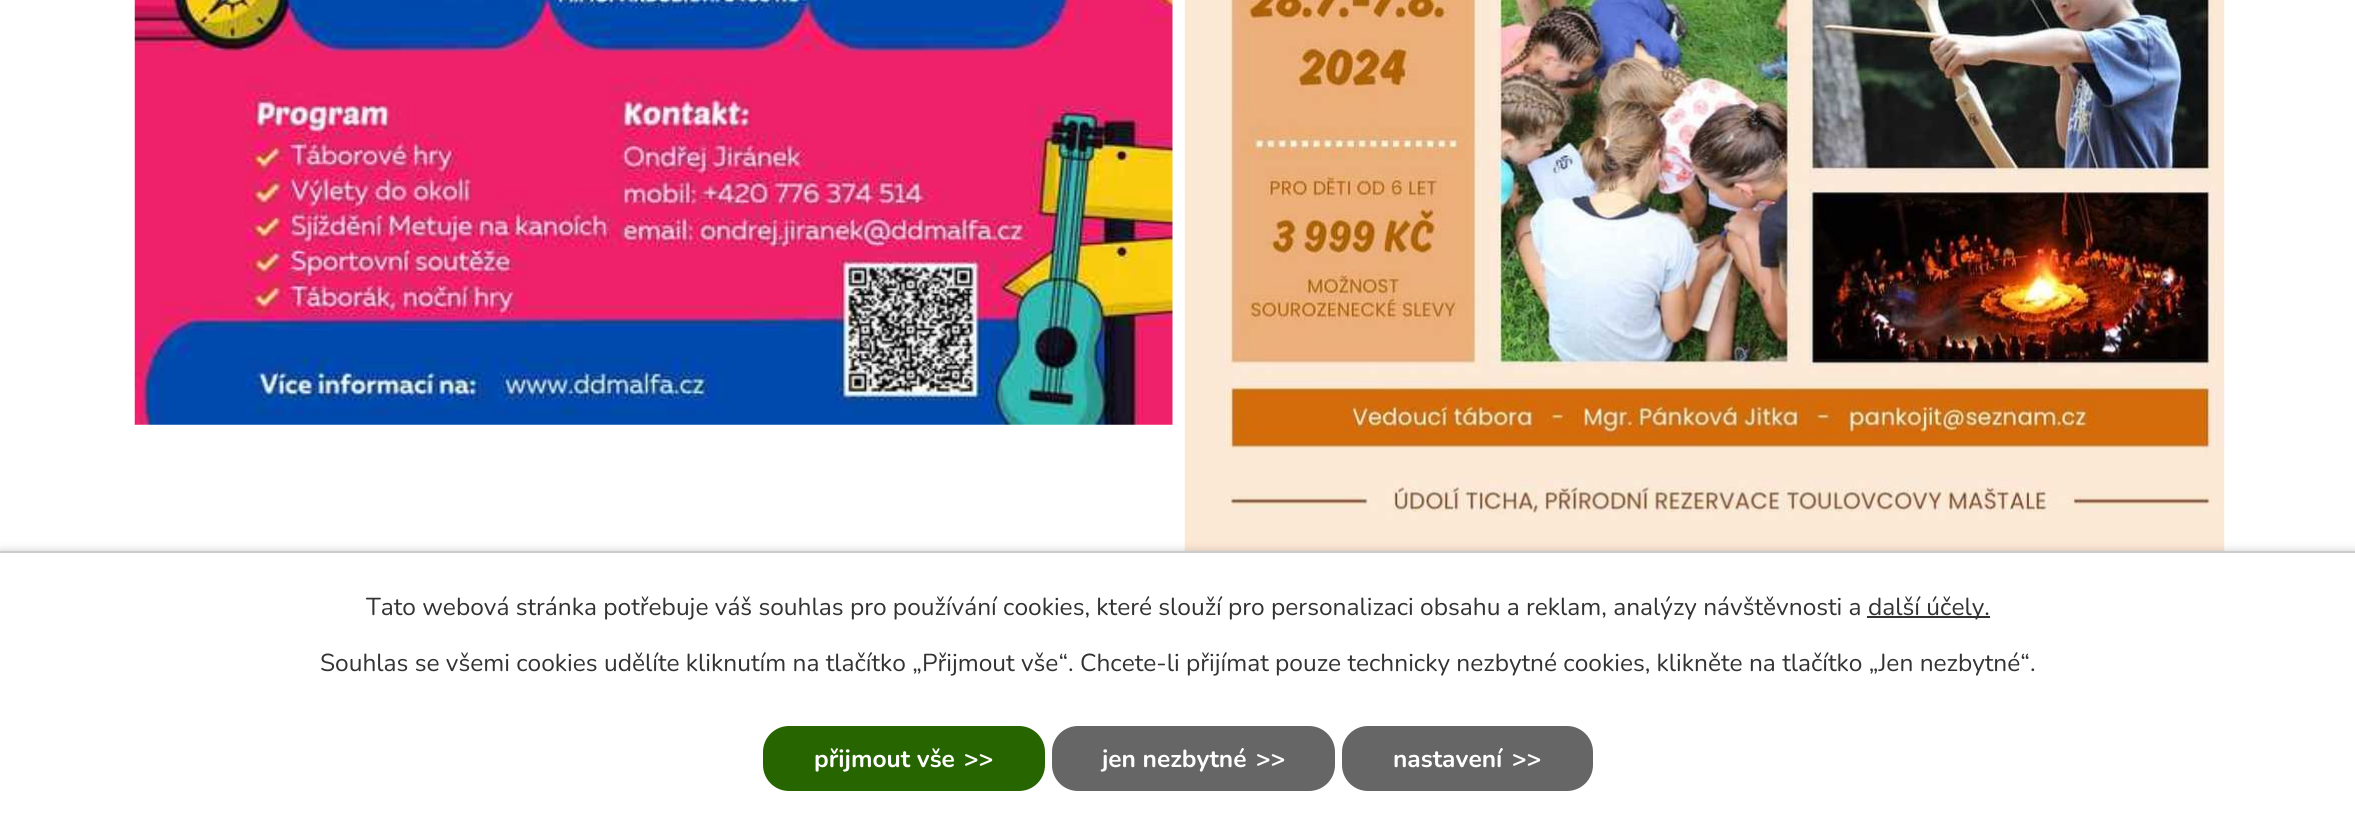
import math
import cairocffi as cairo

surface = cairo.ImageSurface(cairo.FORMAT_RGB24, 2355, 833)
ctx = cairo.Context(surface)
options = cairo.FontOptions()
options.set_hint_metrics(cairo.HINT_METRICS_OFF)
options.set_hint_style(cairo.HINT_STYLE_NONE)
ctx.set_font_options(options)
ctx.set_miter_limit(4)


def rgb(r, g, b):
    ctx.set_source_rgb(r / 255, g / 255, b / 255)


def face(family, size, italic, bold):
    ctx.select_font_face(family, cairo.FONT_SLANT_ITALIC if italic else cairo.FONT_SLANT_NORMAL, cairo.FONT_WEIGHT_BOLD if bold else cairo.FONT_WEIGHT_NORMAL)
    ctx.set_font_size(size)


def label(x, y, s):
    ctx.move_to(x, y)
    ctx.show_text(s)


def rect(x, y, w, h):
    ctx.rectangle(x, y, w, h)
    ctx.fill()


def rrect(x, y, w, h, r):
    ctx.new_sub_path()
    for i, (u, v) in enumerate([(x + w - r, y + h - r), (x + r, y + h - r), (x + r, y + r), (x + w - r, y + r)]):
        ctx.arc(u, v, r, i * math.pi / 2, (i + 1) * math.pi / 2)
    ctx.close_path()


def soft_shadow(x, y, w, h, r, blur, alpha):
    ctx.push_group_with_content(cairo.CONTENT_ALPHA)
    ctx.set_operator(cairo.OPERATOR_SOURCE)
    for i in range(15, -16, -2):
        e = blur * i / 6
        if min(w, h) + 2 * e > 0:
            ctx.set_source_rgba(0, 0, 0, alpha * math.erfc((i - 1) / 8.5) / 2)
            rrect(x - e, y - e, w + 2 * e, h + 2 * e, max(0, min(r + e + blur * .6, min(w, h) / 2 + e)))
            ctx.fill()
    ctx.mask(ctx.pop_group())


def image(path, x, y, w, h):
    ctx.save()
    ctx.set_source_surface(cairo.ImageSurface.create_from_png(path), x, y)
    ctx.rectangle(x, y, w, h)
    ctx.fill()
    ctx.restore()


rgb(255, 255, 255)
ctx.paint()
image('image0.png', 134, 0, 1039, 425)
image('image1.png', 1184, 0, 1041, 551)
rgb(0, 0, 0)
soft_shadow(0, 551, 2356, 282, 0, 4.5, 0.2)
rgb(255, 255, 255)
rect(0, 553, 2355, 280)
rgb(204, 204, 204)
rect(0, 551, 2355, 2)
face('Nunito', 24.5, 0, 0)
rgb(51, 51, 51)
label(366, 615, 'Tato webová stránka potřebuje váš souhlas pro používání cookies, které slouží pro personalizaci obsahu a reklam, analýzy návštěvnosti a')
rect(1867, 616, 123, 2)
label(1868, 615, 'další účely.')
label(320, 671, 'Souhlas se všemi cookies udělíte kliknutím na tlačítko „Přijmout vše“. Chcete-li přijímat pouze technicky nezbytné cookies, klikněte na tlačítko „Jen nezbytné“.')
rgb(39, 101, 0)
rrect(764, 727, 280, 63, 25)
ctx.fill_preserve()
ctx.stroke()
face('Nunito', 24.5, 0, 1)
rgb(255, 255, 255)
label(814, 767, 'přijmout vše')
label(964, 767, '>>')
rgb(102, 102, 102)
rrect(1053, 727, 281, 63, 25)
ctx.fill_preserve()
ctx.stroke()
rgb(255, 255, 255)
label(1102, 767, 'jen nezbytné')
label(1256, 767, '>>')
rgb(102, 102, 102)
rrect(1343, 727, 249, 63, 25)
ctx.fill_preserve()
ctx.stroke()
rgb(255, 255, 255)
label(1393, 767, 'nastavení')
label(1512, 767, '>>')
surface.write_to_png('render.png')
